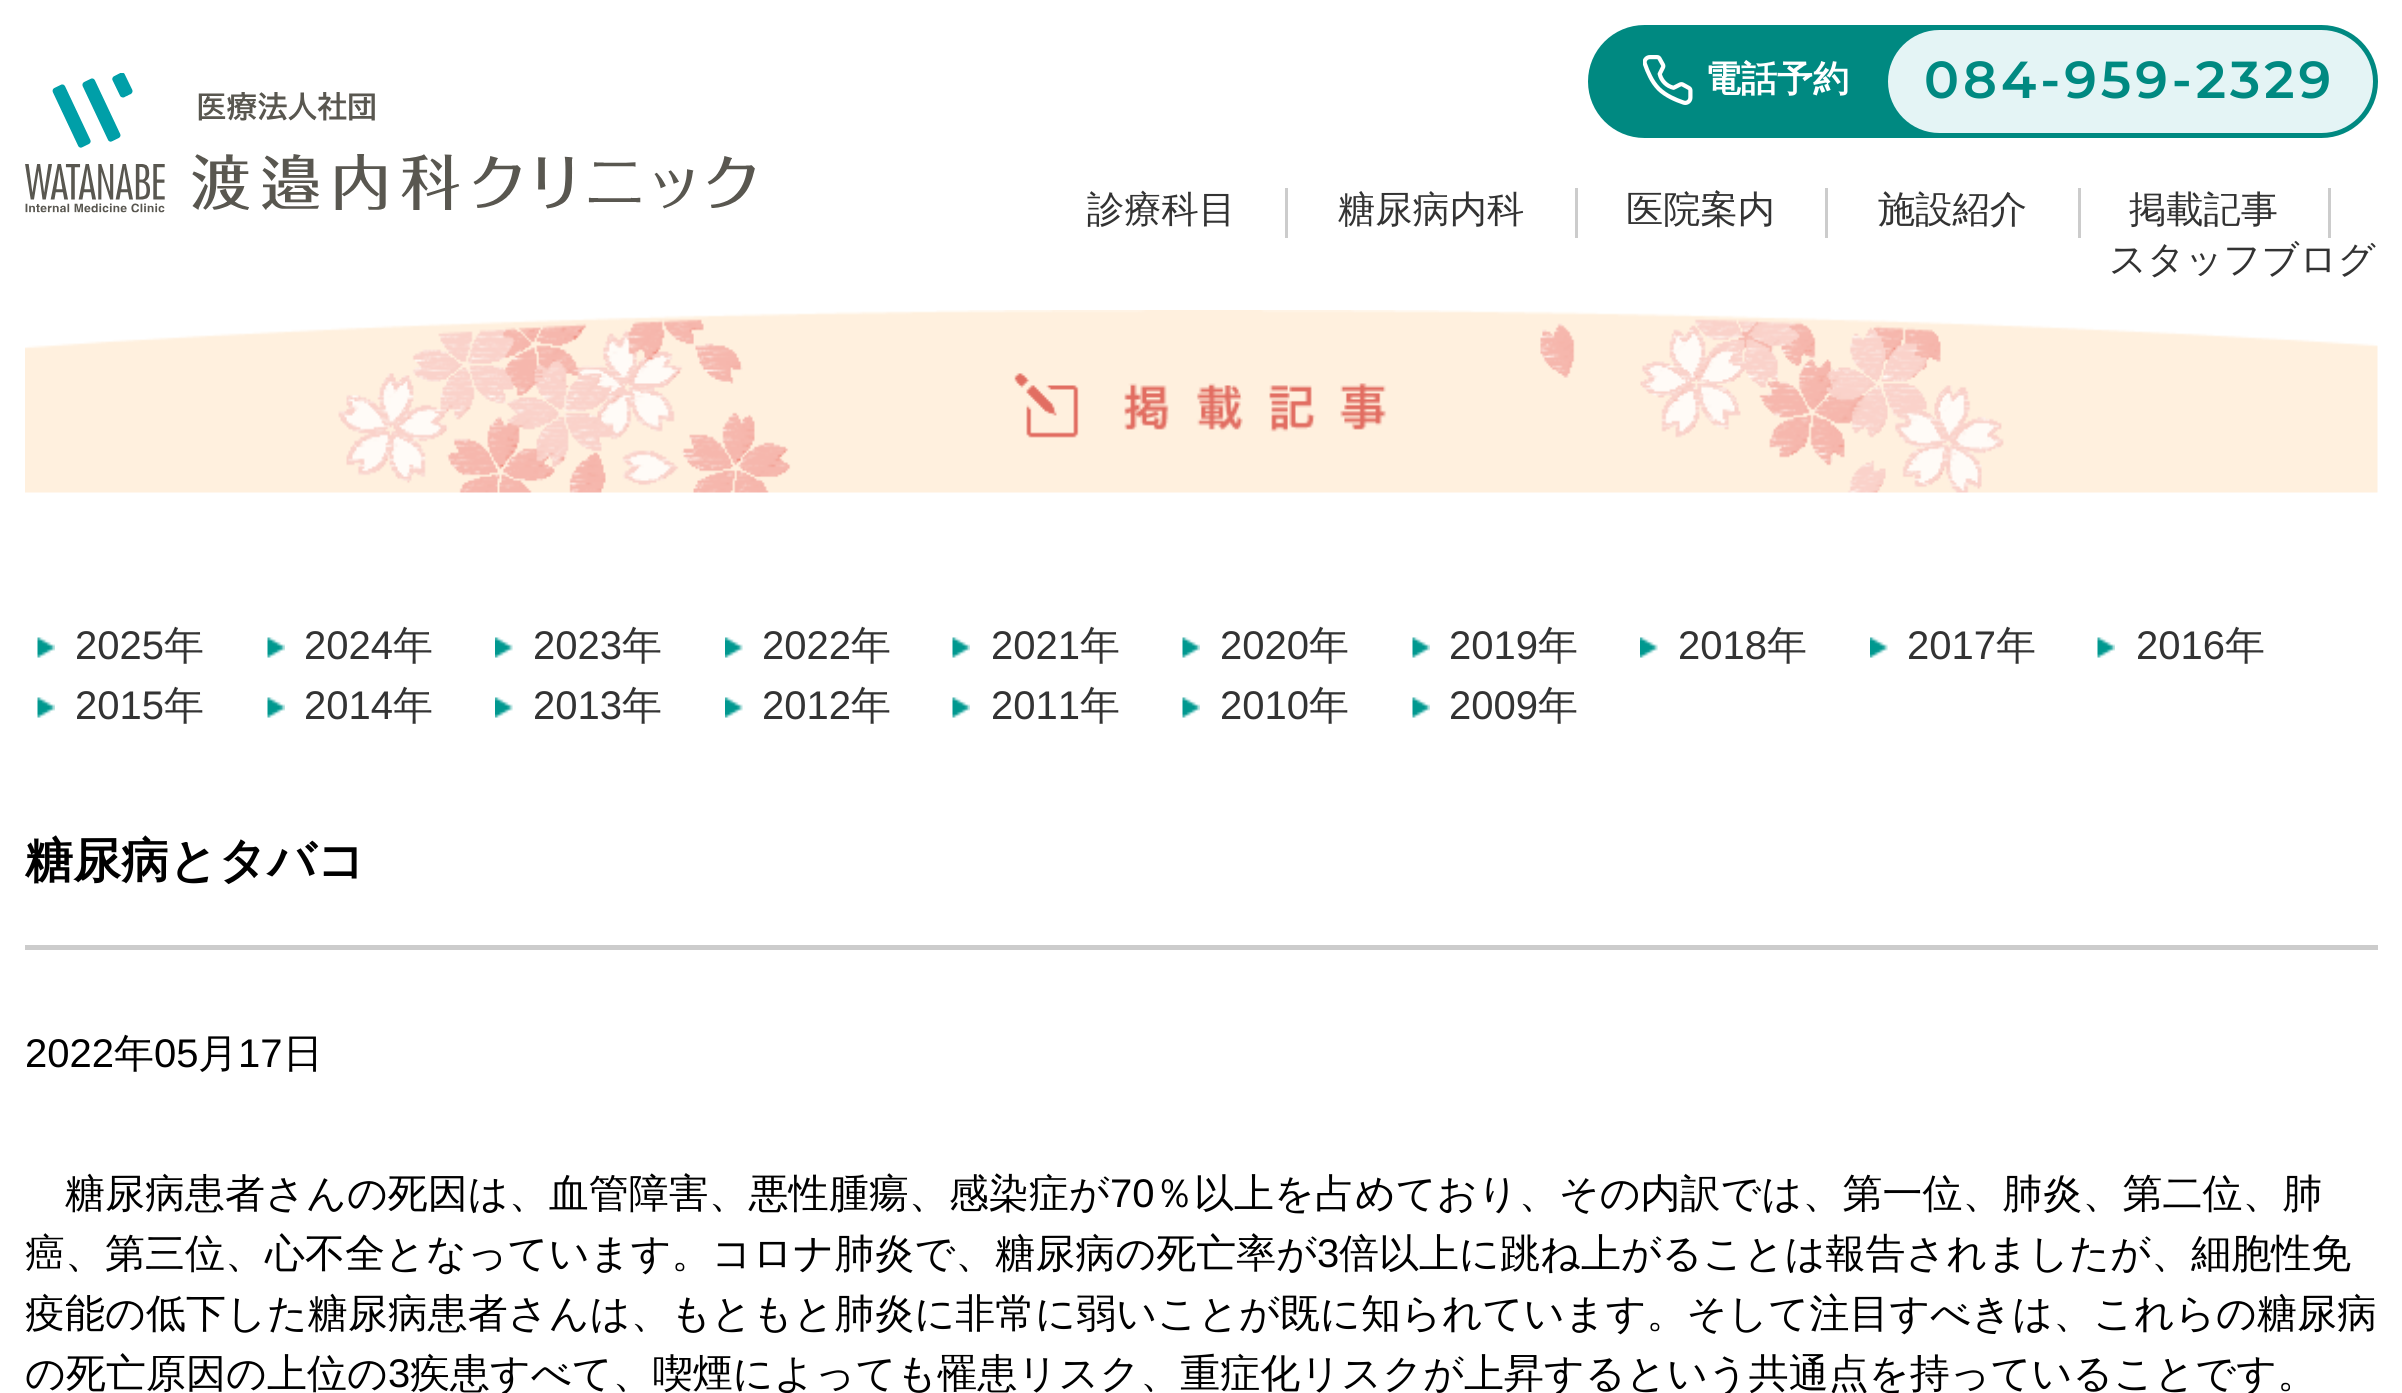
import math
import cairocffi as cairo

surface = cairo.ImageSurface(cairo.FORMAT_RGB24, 2402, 1393)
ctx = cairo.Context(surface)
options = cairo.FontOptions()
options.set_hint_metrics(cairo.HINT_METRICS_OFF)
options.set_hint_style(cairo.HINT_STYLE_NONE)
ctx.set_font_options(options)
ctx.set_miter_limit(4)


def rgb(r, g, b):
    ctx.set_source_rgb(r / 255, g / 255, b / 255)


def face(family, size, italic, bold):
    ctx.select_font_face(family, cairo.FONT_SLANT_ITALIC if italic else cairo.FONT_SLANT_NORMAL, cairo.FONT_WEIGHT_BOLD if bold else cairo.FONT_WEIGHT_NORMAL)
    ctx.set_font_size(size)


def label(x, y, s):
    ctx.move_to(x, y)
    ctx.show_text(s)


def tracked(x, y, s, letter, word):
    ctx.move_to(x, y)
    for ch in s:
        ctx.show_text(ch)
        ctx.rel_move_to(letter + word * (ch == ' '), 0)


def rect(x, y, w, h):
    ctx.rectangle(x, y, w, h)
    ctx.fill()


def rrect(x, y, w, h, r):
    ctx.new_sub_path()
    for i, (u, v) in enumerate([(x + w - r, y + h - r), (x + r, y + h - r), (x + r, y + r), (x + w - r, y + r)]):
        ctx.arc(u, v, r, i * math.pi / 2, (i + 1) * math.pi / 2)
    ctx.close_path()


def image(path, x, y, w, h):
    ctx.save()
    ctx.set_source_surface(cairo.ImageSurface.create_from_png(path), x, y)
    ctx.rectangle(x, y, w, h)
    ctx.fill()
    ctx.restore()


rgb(255, 255, 255)
ctx.paint()
image('image0.png', 25, 73, 730, 140)
rgb(0, 137, 129)
rrect(1590.5, 27.5, 785, 108, 54)
ctx.fill_preserve()
ctx.set_line_width(5)
ctx.stroke()
image('image1.png', 1643, 55, 50, 50)
face('WenQuanYi Zen Hei', 36, 0, 1)
rgb(255, 255, 255)
label(1705, 91, '電話予約')
rgb(228, 244, 245)
rrect(1888, 30, 485, 103, 51.5)
ctx.fill()
face('Montserrat SemiBold', 52, 0, 0)
rgb(0, 137, 129)
tracked(1924, 98, '084-959-2329', 4, 0)
rgb(204, 204, 204)
rect(1285, 188, 3, 50)
face('WenQuanYi Zen Hei Medium', 37.25, 0, 0)
rgb(51, 51, 51)
label(1087, 222, '診療科目')
rgb(204, 204, 204)
rect(1575, 188, 3, 50)
rgb(51, 51, 51)
label(1338, 222, '糖尿病内科')
rgb(204, 204, 204)
rect(1825, 188, 3, 50)
rgb(51, 51, 51)
label(1626, 222, '医院案内')
rgb(204, 204, 204)
rect(2078, 188, 3, 50)
rgb(51, 51, 51)
label(1878, 222, '施設紹介')
rgb(204, 204, 204)
rect(2328, 188, 3, 50)
rgb(51, 51, 51)
label(2129, 222, '掲載記事')
label(2109, 272, 'スタッフブログ')
image('image2.png', 25, 310, 2353, 183)
image('image3.png', 37, 637, 18, 21)
face('Liberation Sans', 40, 0, 0)
label(75, 659, '2025')
face('WenQuanYi Zen Hei Medium', 40, 0, 0)
label(164, 659, '年')
image('image3.png', 267, 637, 18, 21)
face('Liberation Sans', 40, 0, 0)
label(304, 659, '2024')
face('WenQuanYi Zen Hei Medium', 40, 0, 0)
label(393, 659, '年')
image('image4.png', 495, 637, 18, 21)
face('Liberation Sans', 40, 0, 0)
label(533, 659, '2023')
face('WenQuanYi Zen Hei Medium', 40, 0, 0)
label(622, 659, '年')
image('image4.png', 725, 637, 18, 21)
face('Liberation Sans', 40, 0, 0)
label(762, 659, '2022')
face('WenQuanYi Zen Hei Medium', 40, 0, 0)
label(851, 659, '年')
image('image5.png', 952, 637, 18, 21)
face('Liberation Sans', 40, 0, 0)
label(991, 659, '2021')
face('WenQuanYi Zen Hei Medium', 40, 0, 0)
label(1080, 659, '年')
image('image3.png', 1182, 637, 18, 21)
face('Liberation Sans', 40, 0, 0)
label(1220, 659, '2020')
face('WenQuanYi Zen Hei Medium', 40, 0, 0)
label(1309, 659, '年')
image('image3.png', 1412, 637, 18, 21)
face('Liberation Sans', 40, 0, 0)
label(1449, 659, '2019')
face('WenQuanYi Zen Hei Medium', 40, 0, 0)
label(1538, 659, '年')
image('image6.png', 1640, 637, 18, 21)
face('Liberation Sans', 40, 0, 0)
label(1678, 659, '2018')
face('WenQuanYi Zen Hei Medium', 40, 0, 0)
label(1767, 659, '年')
image('image6.png', 1870, 637, 18, 21)
face('Liberation Sans', 40, 0, 0)
label(1907, 659, '2017')
face('WenQuanYi Zen Hei Medium', 40, 0, 0)
label(1996, 659, '年')
image('image5.png', 2097, 637, 18, 21)
face('Liberation Sans', 40, 0, 0)
label(2136, 659, '2016')
face('WenQuanYi Zen Hei Medium', 40, 0, 0)
label(2225, 659, '年')
image('image3.png', 37, 697, 18, 21)
face('Liberation Sans', 40, 0, 0)
label(75, 719, '2015')
face('WenQuanYi Zen Hei Medium', 40, 0, 0)
label(164, 719, '年')
image('image3.png', 267, 697, 18, 21)
face('Liberation Sans', 40, 0, 0)
label(304, 719, '2014')
face('WenQuanYi Zen Hei Medium', 40, 0, 0)
label(393, 719, '年')
image('image4.png', 495, 697, 18, 21)
face('Liberation Sans', 40, 0, 0)
label(533, 719, '2013')
face('WenQuanYi Zen Hei Medium', 40, 0, 0)
label(622, 719, '年')
image('image4.png', 725, 697, 18, 21)
face('Liberation Sans', 40, 0, 0)
label(762, 719, '2012')
face('WenQuanYi Zen Hei Medium', 40, 0, 0)
label(851, 719, '年')
image('image5.png', 952, 697, 18, 21)
face('Liberation Sans', 40, 0, 0)
label(991, 719, '2011')
face('WenQuanYi Zen Hei Medium', 40, 0, 0)
label(1080, 719, '年')
image('image3.png', 1182, 697, 18, 21)
face('Liberation Sans', 40, 0, 0)
label(1220, 719, '2010')
face('WenQuanYi Zen Hei Medium', 40, 0, 0)
label(1309, 719, '年')
image('image3.png', 1412, 697, 18, 21)
face('Liberation Sans', 40, 0, 0)
label(1449, 719, '2009')
face('WenQuanYi Zen Hei Medium', 40, 0, 0)
label(1538, 719, '年')
rgb(204, 204, 204)
rect(25, 945, 2353, 5)
face('WenQuanYi Zen Hei', 48, 0, 1)
rgb(0, 0, 0)
label(25, 877, '糖尿病とタバコ')
face('Liberation Sans', 40, 0, 0)
label(25, 1067, '2022')
face('WenQuanYi Zen Hei Medium', 40, 0, 0)
label(114, 1067, '年')
face('Liberation Sans', 40, 0, 0)
label(154, 1067, '05')
face('WenQuanYi Zen Hei Medium', 40, 0, 0)
label(198, 1067, '月')
face('Liberation Sans', 40, 0, 0)
label(238, 1067, '17')
face('WenQuanYi Zen Hei Medium', 40, 0, 0)
label(283, 1067, '日')
label(65, 1207, '糖尿病患者さんの死因は、血管障害、悪性腫瘍、感染症が')
face('Liberation Sans', 40, 0, 0)
label(1110, 1207, '70')
face('WenQuanYi Zen Hei Medium', 40, 0, 0)
label(1154, 1207, '％以上を占めており、その内訳では、第一位、肺炎、第二位、肺')
label(25, 1267, '癌、第三位、心不全となっています。コロナ肺炎で、糖尿病の死亡率が')
face('Liberation Sans', 40, 0, 0)
label(1317, 1267, '3')
face('WenQuanYi Zen Hei Medium', 40, 0, 0)
label(1339, 1267, '倍以上に跳ね上がることは報告されましたが、細胞性免')
label(25, 1327, '疫能の低下した糖尿病患者さんは、もともと肺炎に非常に弱いことが既に知られています。そして注目すべきは、これらの糖尿病')
label(25, 1387, 'の死亡原因の上位の')
face('Liberation Sans', 40, 0, 0)
label(388, 1387, '3')
face('WenQuanYi Zen Hei Medium', 40, 0, 0)
label(410, 1387, '疾患すべて、喫煙によっても罹患リスク、重症化リスクが上昇するという共通点を持っていることです。')
surface.write_to_png('render.png')
